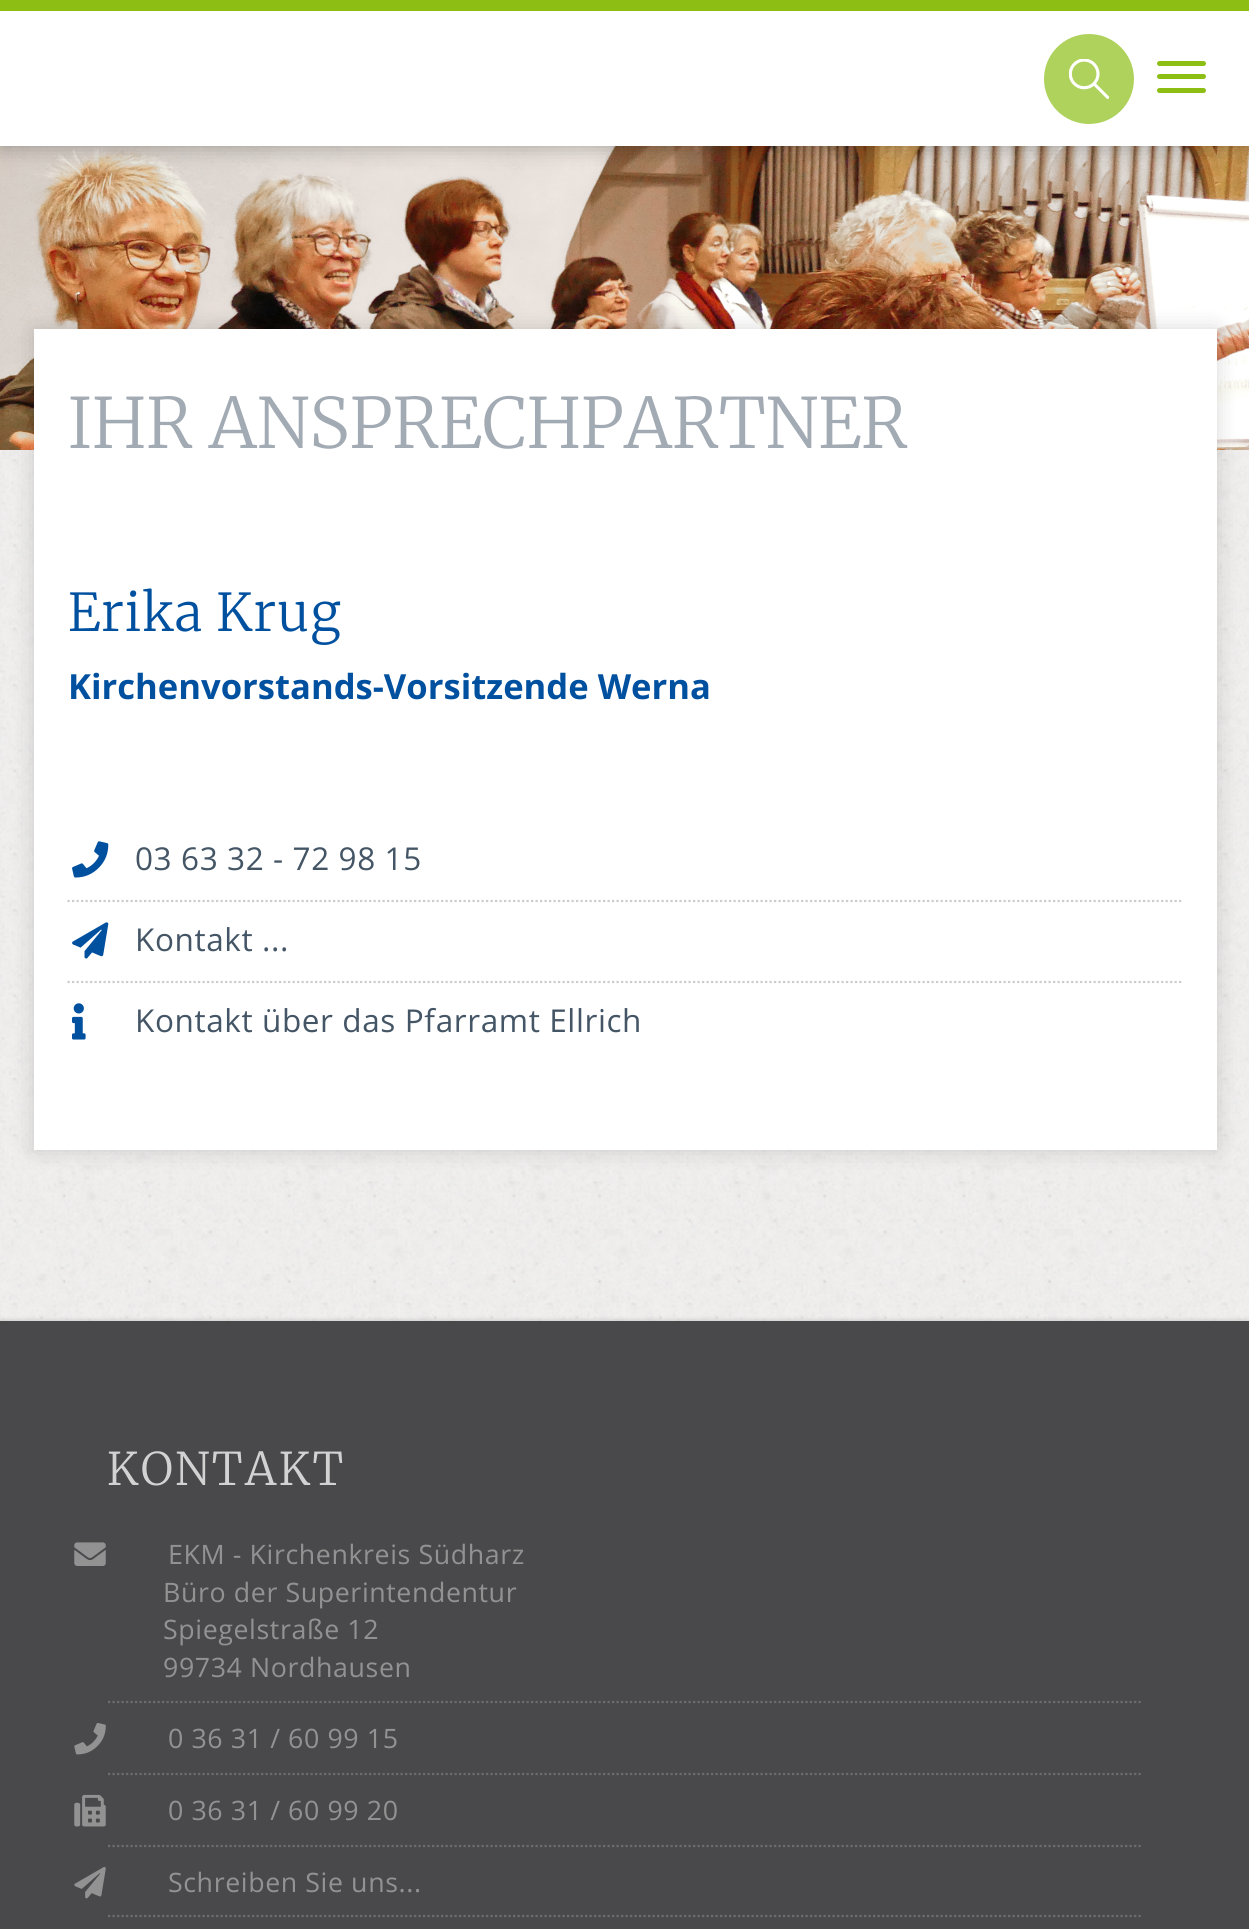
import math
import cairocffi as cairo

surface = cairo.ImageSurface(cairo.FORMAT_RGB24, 1249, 1929)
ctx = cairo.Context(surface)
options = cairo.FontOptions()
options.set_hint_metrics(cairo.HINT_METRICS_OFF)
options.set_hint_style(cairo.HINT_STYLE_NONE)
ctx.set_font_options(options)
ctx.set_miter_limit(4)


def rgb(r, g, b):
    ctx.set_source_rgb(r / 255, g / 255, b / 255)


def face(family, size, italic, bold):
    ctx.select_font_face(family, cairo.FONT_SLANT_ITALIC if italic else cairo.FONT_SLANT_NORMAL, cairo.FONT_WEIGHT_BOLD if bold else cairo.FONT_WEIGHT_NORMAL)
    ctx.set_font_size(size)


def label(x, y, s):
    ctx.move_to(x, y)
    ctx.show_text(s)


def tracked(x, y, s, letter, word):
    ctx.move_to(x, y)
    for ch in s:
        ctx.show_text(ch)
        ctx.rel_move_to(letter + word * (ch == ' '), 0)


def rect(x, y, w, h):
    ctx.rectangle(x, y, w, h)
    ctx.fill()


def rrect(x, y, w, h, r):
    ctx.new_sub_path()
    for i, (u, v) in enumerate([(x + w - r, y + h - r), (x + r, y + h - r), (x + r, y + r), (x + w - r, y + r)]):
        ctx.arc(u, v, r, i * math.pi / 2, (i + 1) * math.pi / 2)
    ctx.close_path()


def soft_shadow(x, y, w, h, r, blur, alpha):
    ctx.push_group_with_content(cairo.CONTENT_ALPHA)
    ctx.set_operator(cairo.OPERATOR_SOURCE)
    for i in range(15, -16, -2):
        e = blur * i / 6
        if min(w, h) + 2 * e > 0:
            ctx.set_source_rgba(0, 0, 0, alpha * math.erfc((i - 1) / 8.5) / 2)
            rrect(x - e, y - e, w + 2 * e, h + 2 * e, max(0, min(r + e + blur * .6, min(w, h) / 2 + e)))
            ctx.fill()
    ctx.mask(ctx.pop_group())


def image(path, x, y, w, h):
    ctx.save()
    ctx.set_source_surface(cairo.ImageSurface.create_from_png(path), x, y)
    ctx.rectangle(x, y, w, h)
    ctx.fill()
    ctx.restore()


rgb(255, 255, 255)
ctx.paint()
image('image0.png', 0, 450, 1249, 871)
image('image2.png', 0, 146, 1249, 304)
rgb(0, 0, 0)
soft_shadow(0, 0, 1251, 146, 0, 11, 0.3)
rgb(255, 255, 255)
rect(0, 11, 1249, 135)
rgb(140, 190, 20)
rect(0, 0, 1249, 11)
rgb(175, 210, 92)
ctx.arc(1089, 79, 45, 0, 2 * math.pi)
ctx.fill()
image('image1.png', 1069, 59, 40, 40)
rgb(140, 190, 20)
rrect(1157, 61, 49, 5, 2.5)
ctx.fill()
rrect(1157, 74, 49, 5, 2.5)
ctx.fill()
rrect(1157, 88, 49, 5, 2.5)
ctx.fill()
rgb(0, 0, 0)
soft_shadow(34, 329, 1183, 821, 0, 11, 0.15)
rgb(255, 255, 255)
rect(34, 329, 1183, 821)
face('Merriweather Light', 69.25, 0, 0)
rgb(162, 170, 179)
label(68, 448, 'IHR ANSPRECHPARTNER')
face('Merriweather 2 Light', 52, 0, 0)
rgb(0, 80, 160)
tracked(68, 631, 'Erika Krug', 1, 0)
face('Open Sans', 34.6, 0, 1)
label(68, 699, 'Kirchenvorstands-Vorsitzende Werna')
ctx.new_path()
ctx.move_to(67.5, 901)
ctx.line_to(1183.5, 901)
rgb(204, 204, 204)
ctx.set_line_width(2.2)
ctx.set_dash([2.25, 2.25])
ctx.stroke()
image('image3.png', 72, 841, 37, 37)
face('Open Sans', 31.5, 0, 0)
rgb(68, 85, 102)
tracked(135, 870, '03 63 32 - 72 98 15', 0.6, 0)
ctx.new_path()
ctx.move_to(67.5, 982)
ctx.line_to(1183.5, 982)
rgb(204, 204, 204)
ctx.stroke()
image('image4.png', 72, 922, 37, 37)
rgb(68, 85, 102)
tracked(135, 951, 'Kontakt ...', 0.6, 0)
image('image5.png', 72, 1003, 14, 37)
tracked(135, 1032, 'Kontakt über das Pfarramt Ellrich', 0.6, 0)
rgb(0, 0, 0)
soft_shadow(-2, 1319, 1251, 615, 0, 1.5, 0.1)
rgb(73, 73, 75)
rect(0, 1321, 1249, 608)
face('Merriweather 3 Light', 45, 0, 0)
rgb(210, 210, 210)
tracked(107, 1485, 'KONTAKT', 2.25, 0)
ctx.new_path()
ctx.move_to(108, 1702)
ctx.line_to(1143, 1702)
rgb(109, 109, 111)
ctx.stroke()
image('image6.png', 74, 1542, 32, 24)
face('Open Sans', 26.75, 0, 0)
rgb(146, 146, 147)
tracked(168, 1564, 'EKM - Kirchenkreis Südharz', 0.6, 0)
tracked(163, 1602, 'Büro der Superintendentur', 0.6, 0)
tracked(163, 1639, 'Spiegelstraße 12', 0.6, 0)
tracked(163, 1677, '99734 Nordhausen', 0.6, 0)
ctx.new_path()
ctx.move_to(108, 1774)
ctx.line_to(1143, 1774)
rgb(109, 109, 111)
ctx.stroke()
image('image7.png', 74, 1723, 32, 32)
rgb(146, 146, 147)
tracked(168, 1748, '0 36 31 / 60 99 15', 0.6, 0)
ctx.new_path()
ctx.move_to(108, 1846)
ctx.line_to(1143, 1846)
rgb(109, 109, 111)
ctx.stroke()
image('image8.png', 74, 1794, 32, 33)
rgb(146, 146, 147)
tracked(168, 1820, '0 36 31 / 60 99 20', 0.6, 0)
ctx.new_path()
ctx.move_to(108, 1916)
ctx.line_to(1143, 1916)
rgb(109, 109, 111)
ctx.stroke()
image('image9.png', 74, 1867, 32, 32)
rgb(146, 146, 147)
tracked(168, 1892, 'Schreiben Sie uns...', 0.6, 0)
surface.write_to_png('render.png')
